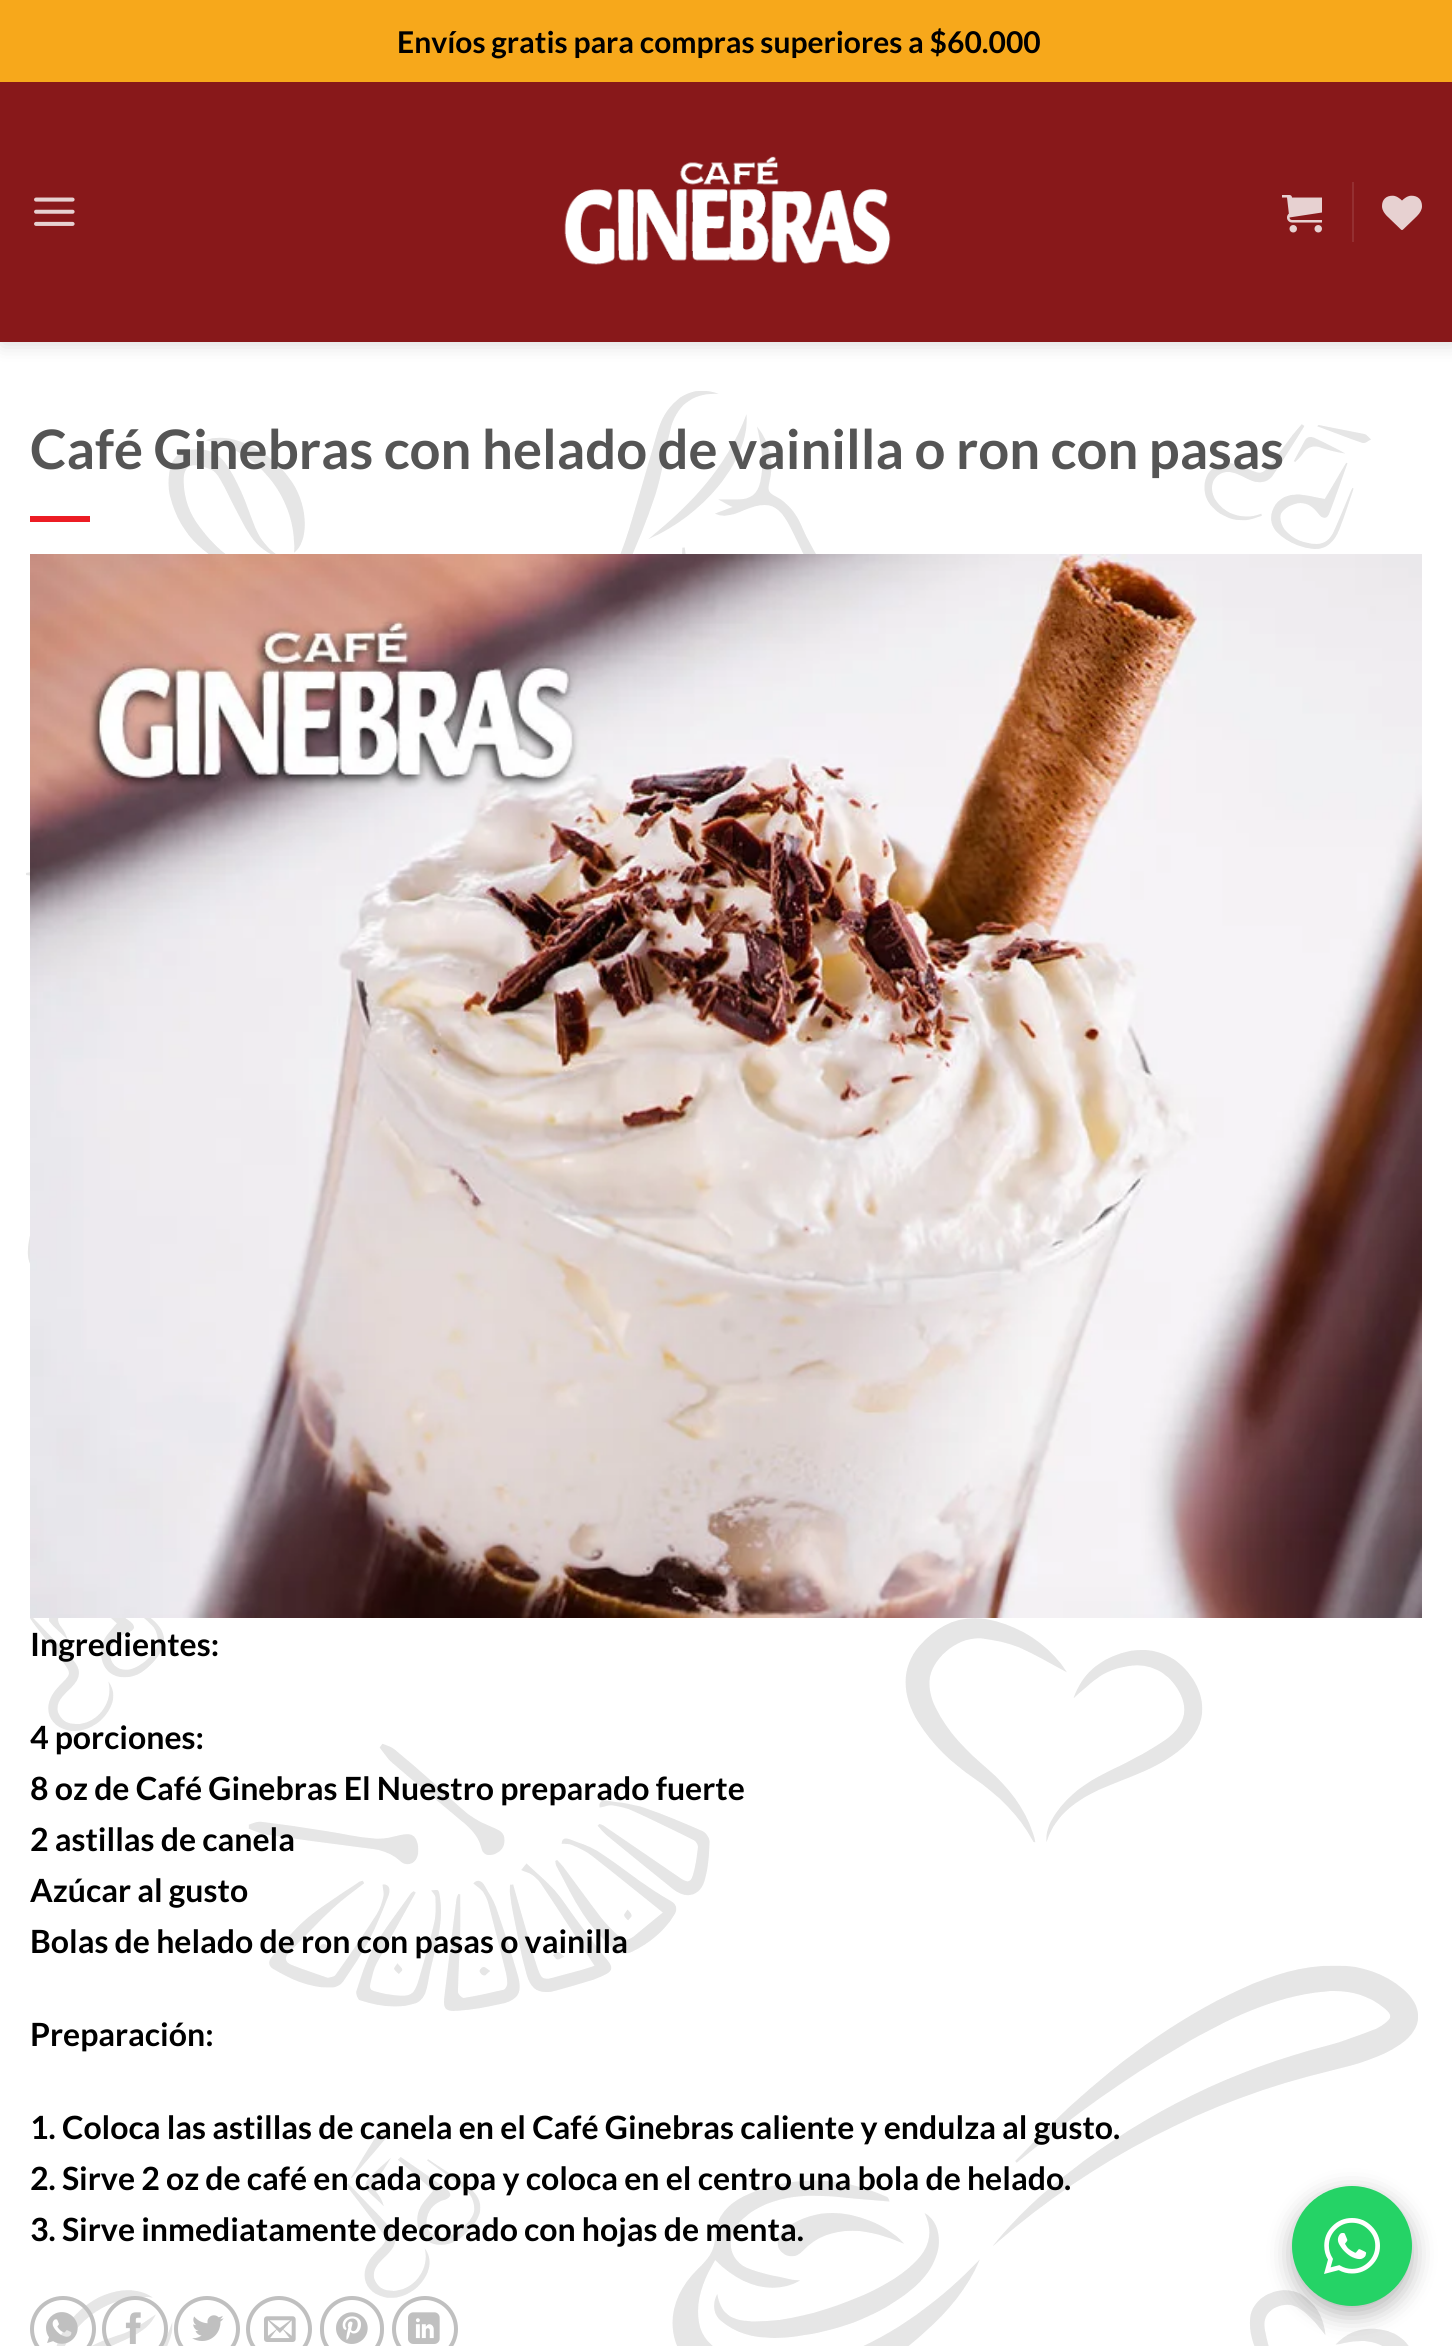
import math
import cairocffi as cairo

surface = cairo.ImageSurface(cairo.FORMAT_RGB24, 1452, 2346)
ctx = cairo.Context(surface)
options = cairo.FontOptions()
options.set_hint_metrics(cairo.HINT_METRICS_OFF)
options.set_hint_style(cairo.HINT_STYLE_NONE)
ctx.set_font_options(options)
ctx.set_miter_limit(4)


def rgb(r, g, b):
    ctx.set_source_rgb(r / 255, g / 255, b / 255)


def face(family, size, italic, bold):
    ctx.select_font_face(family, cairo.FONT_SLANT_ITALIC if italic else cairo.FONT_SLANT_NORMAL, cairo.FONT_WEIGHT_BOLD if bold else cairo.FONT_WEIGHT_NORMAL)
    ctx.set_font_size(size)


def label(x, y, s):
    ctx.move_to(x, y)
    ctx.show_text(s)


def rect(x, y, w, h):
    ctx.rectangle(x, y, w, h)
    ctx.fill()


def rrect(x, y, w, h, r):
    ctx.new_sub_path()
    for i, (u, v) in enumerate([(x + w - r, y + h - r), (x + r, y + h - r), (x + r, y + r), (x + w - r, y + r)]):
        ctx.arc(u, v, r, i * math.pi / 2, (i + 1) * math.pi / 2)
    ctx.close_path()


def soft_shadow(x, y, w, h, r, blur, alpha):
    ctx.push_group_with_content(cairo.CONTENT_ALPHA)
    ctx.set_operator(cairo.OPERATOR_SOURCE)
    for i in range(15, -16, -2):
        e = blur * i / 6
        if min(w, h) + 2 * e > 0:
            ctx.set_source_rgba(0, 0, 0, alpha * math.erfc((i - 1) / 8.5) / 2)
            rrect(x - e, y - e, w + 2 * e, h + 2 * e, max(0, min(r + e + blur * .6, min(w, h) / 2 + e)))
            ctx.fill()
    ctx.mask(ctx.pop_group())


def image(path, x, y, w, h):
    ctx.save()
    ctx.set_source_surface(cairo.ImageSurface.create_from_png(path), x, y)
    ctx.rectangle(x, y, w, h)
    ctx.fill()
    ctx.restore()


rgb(255, 255, 255)
ctx.paint()
rgb(0, 0, 0)
soft_shadow(2, 2, 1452, 342, 0, 10, 0.15)
rgb(247, 168, 27)
rect(0, 0, 1452, 82)
face('Lato', 30, 0, 1)
rgb(0, 0, 0)
label(397, 53, 'Envíos gratis para compras superiores a $60.000')
rgb(136, 24, 26)
rect(0, 82, 1452, 260)
image('image0.png', 34, 197, 41, 29)
image('image1.png', 564, 156, 327, 109)
image('image2.png', 1282, 195, 40, 38)
rgb(148, 47, 49)
rect(1352, 182, 2, 60)
image('image3.png', 1382, 195, 40, 35)
image('image4.png', 26, 391, 1392, 1955)
image('image5.png', 26, 391, 1392, 1955)
face('Lato', 54.4, 0, 1)
rgb(85, 85, 85)
label(30, 469, 'Café Ginebras con helado de vainilla o ron con pasas')
rgb(236, 28, 36)
rect(30, 516, 60, 6)
image('image6.png', 30, 554, 1392, 1064)
face('Lato', 32, 0, 1)
rgb(0, 0, 0)
label(30, 1656, 'Ingredientes:')
label(30, 1749, '4 porciones:')
label(30, 1800, '8 oz de Café Ginebras El Nuestro preparado fuerte')
label(30, 1851, '2 astillas de canela')
label(30, 1902, 'Azúcar al gusto')
label(30, 1953, 'Bolas de helado de ron con pasas o vainilla')
label(30, 2046, 'Preparación:')
label(30, 2139, '1. Coloca las astillas de canela en el Café Ginebras caliente y endulza al gusto.')
label(30, 2190, '2. Sirve 2 oz de café en cada copa y coloca en el centro una bola de helado.')
label(30, 2241, '3. Sirve inmediatamente decorado con hojas de menta.')
ctx.new_path()
ctx.arc(63, 2329, 31, 0, 2 * math.pi)
rgb(192, 192, 192)
ctx.set_line_width(4)
ctx.stroke()
image('image7.png', 46, 2312, 32, 32)
ctx.arc(135, 2329, 31, 0, 2 * math.pi)
ctx.stroke()
image('image8.png', 125, 2312, 16, 32)
ctx.arc(207, 2329, 31, 0, 2 * math.pi)
ctx.stroke()
image('image9.png', 192, 2315, 32, 26)
ctx.arc(279, 2329, 31, 0, 2 * math.pi)
ctx.stroke()
image('image10.png', 264, 2316, 32, 26)
rrect(322, 2298, 60, 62, 30)
ctx.stroke()
image('image11.png', 336, 2312, 32, 32)
ctx.arc(425, 2329, 31, 0, 2 * math.pi)
ctx.stroke()
image('image12.png', 408, 2312, 32, 32)
rgb(0, 0, 0)
soft_shadow(1292, 2194, 120, 120, 60, 12, 0.3)
rgb(37, 211, 102)
ctx.arc(1352, 2246, 60, 0, 2 * math.pi)
ctx.fill()
image('image13.png', 1324, 2218, 56, 56)
surface.write_to_png('render.png')
